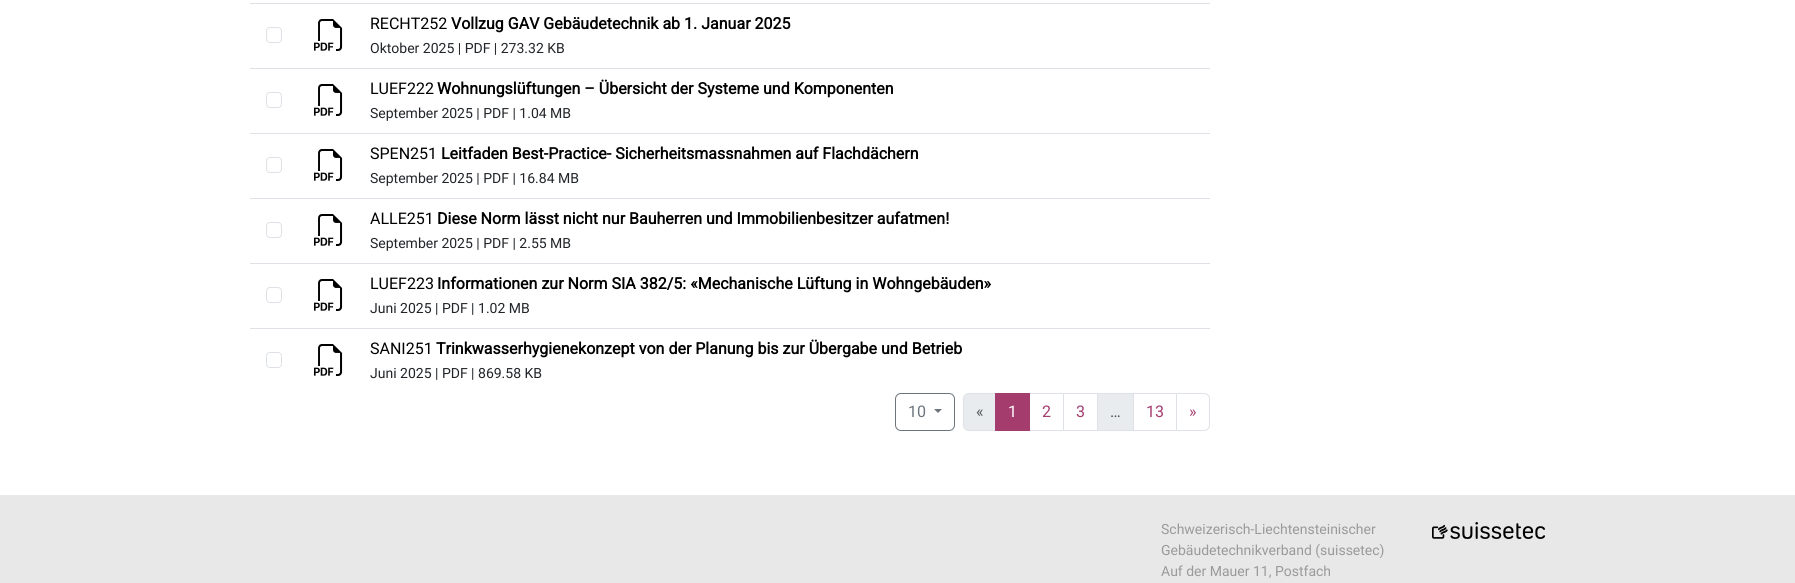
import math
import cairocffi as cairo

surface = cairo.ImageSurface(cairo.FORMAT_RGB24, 1795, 583)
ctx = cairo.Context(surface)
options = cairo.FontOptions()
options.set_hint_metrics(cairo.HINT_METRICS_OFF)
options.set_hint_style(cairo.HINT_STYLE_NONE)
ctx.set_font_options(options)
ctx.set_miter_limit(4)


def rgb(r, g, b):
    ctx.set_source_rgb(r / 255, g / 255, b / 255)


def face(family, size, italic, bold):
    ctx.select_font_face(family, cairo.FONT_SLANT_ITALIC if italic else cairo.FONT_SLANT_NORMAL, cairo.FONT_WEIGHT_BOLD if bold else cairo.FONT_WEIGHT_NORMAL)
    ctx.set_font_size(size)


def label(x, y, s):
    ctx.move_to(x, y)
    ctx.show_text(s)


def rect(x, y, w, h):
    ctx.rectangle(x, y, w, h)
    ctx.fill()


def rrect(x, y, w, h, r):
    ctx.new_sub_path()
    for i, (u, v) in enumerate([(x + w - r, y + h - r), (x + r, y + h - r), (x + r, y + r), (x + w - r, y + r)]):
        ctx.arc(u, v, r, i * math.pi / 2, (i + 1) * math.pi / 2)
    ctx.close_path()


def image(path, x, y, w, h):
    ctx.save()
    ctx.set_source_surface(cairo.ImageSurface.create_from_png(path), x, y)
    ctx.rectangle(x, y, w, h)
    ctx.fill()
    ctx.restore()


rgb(232, 232, 232)
ctx.paint()
rgb(255, 255, 255)
rect(0, 0, 1795, 495)
rgb(222, 226, 230)
rect(250, 3, 960, 1)
rect(250, 68, 960, 1)
rrect(266.5, 27.5, 15, 15, 3.5)
ctx.set_line_width(1)
ctx.stroke()
image('image0.png', 314, 19, 29, 32)
face('Roboto', 16, 0, 0)
rgb(0, 0, 0)
label(370, 29, 'RECHT252')
face('Roboto', 16, 0, 1)
label(451, 29, 'Vollzug GAV Gebäudetechnik ab 1. Januar 2025')
face('Roboto', 14, 0, 0)
rgb(33, 37, 41)
label(370, 53, 'Oktober 2025 | PDF | 273.32 KB')
rgb(222, 226, 230)
rect(250, 133, 960, 1)
rrect(266.5, 92.5, 15, 15, 3.5)
ctx.stroke()
image('image0.png', 314, 84, 29, 32)
face('Roboto', 16, 0, 0)
rgb(0, 0, 0)
label(370, 94, 'LUEF222')
face('Roboto', 16, 0, 1)
label(437, 94, 'Wohnungslüftungen – Übersicht der Systeme und Komponenten')
face('Roboto', 14, 0, 0)
rgb(33, 37, 41)
label(370, 118, 'September 2025 | PDF | 1.04 MB')
rgb(222, 226, 230)
rect(250, 198, 960, 1)
rrect(266.5, 157.5, 15, 15, 3.5)
ctx.stroke()
image('image0.png', 314, 149, 29, 32)
face('Roboto', 16, 0, 0)
rgb(0, 0, 0)
label(370, 159, 'SPEN251')
face('Roboto', 16, 0, 1)
label(441, 159, 'Leitfaden Best-Practice- Sicherheitsmassnahmen auf Flachdächern')
face('Roboto', 14, 0, 0)
rgb(33, 37, 41)
label(370, 183, 'September 2025 | PDF | 16.84 MB')
rgb(222, 226, 230)
rect(250, 263, 960, 1)
rrect(266.5, 222.5, 15, 15, 3.5)
ctx.stroke()
image('image0.png', 314, 214, 29, 32)
face('Roboto', 16, 0, 0)
rgb(0, 0, 0)
label(370, 224, 'ALLE251')
face('Roboto', 16, 0, 1)
label(437, 224, 'Diese Norm lässt nicht nur Bauherren und Immobilienbesitzer aufatmen!')
face('Roboto', 14, 0, 0)
rgb(33, 37, 41)
label(370, 248, 'September 2025 | PDF | 2.55 MB')
rgb(222, 226, 230)
rect(250, 328, 960, 1)
rrect(266.5, 287.5, 15, 15, 3.5)
ctx.stroke()
image('image0.png', 314, 279, 29, 32)
face('Roboto', 16, 0, 0)
rgb(0, 0, 0)
label(370, 289, 'LUEF223')
face('Roboto', 16, 0, 1)
label(437, 289, 'Informationen zur Norm SIA 382/5: «Mechanische Lüftung in Wohngebäuden»')
face('Roboto', 14, 0, 0)
rgb(33, 37, 41)
label(370, 313, 'Juni 2025 | PDF | 1.02 MB')
rrect(266.5, 352.5, 15, 15, 3.5)
rgb(222, 226, 230)
ctx.stroke()
image('image0.png', 314, 344, 29, 32)
face('Roboto', 16, 0, 0)
rgb(0, 0, 0)
label(370, 354, 'SANI251')
face('Roboto', 16, 0, 1)
label(436, 354, 'Trinkwasserhygienekonzept von der Planung bis zur Übergabe und Betrieb')
face('Roboto', 14, 0, 0)
rgb(33, 37, 41)
label(370, 378, 'Juni 2025 | PDF | 869.58 KB')
rrect(895.5, 393.5, 59, 37, 5.5)
rgb(108, 117, 125)
ctx.stroke()
face('Roboto', 16, 0, 0)
label(908, 417, '10')
ctx.new_path()
ctx.move_to(934, 409)
ctx.line_to(942, 409)
ctx.line_to(938, 413)
ctx.close_path()
ctx.fill()
rgb(233, 236, 239)
ctx.new_path()
ctx.move_to(969, 393.5)
ctx.line_to(995.5, 393.5)
ctx.line_to(995.5, 430.5)
ctx.line_to(969, 430.5)
ctx.curve_to(966, 430.5, 963.5, 428, 963.5, 425)
ctx.line_to(963.5, 399)
ctx.curve_to(963.5, 396, 966, 393.5, 969, 393.5)
ctx.close_path()
ctx.fill_preserve()
rgb(222, 226, 230)
ctx.stroke()
rgb(83, 87, 91)
label(976, 417, '«')
ctx.rectangle(1029.5, 393.5, 34, 37)
rgb(222, 226, 230)
ctx.stroke()
rgb(165, 60, 110)
rect(995, 393, 35, 38)
rgb(255, 255, 255)
label(1008, 417, '1')
rgb(165, 60, 110)
label(1042, 417, '2')
ctx.rectangle(1063.5, 393.5, 34, 37)
rgb(222, 226, 230)
ctx.stroke()
rgb(165, 60, 110)
label(1076, 417, '3')
rgb(233, 236, 239)
ctx.rectangle(1097.5, 393.5, 36, 37)
ctx.fill_preserve()
rgb(222, 226, 230)
ctx.stroke()
ctx.rectangle(1133.5, 393.5, 43, 37)
ctx.stroke()
rgb(165, 60, 110)
label(1146, 417, '13')
rgb(255, 255, 255)
ctx.new_path()
ctx.move_to(1176.5, 393.5)
ctx.line_to(1204, 393.5)
ctx.curve_to(1207, 393.5, 1209.5, 396, 1209.5, 399)
ctx.line_to(1209.5, 425)
ctx.curve_to(1209.5, 428, 1207, 430.5, 1204, 430.5)
ctx.line_to(1176.5, 430.5)
ctx.close_path()
ctx.fill_preserve()
rgb(222, 226, 230)
ctx.stroke()
rgb(165, 60, 110)
label(1189, 417, '»')
rgb(83, 87, 91)
label(1110, 417, '…')
face('Roboto', 14, 0, 0)
rgb(155, 154, 155)
label(1161, 534, 'Schweizerisch-Liechtensteinischer')
label(1161, 555, 'Gebäudetechnikverband (suissetec)')
label(1161, 576, 'Auf der Mauer 11, Postfach')
image('image1.png', 1432, 522, 113, 17)
surface.write_to_png('render.png')
